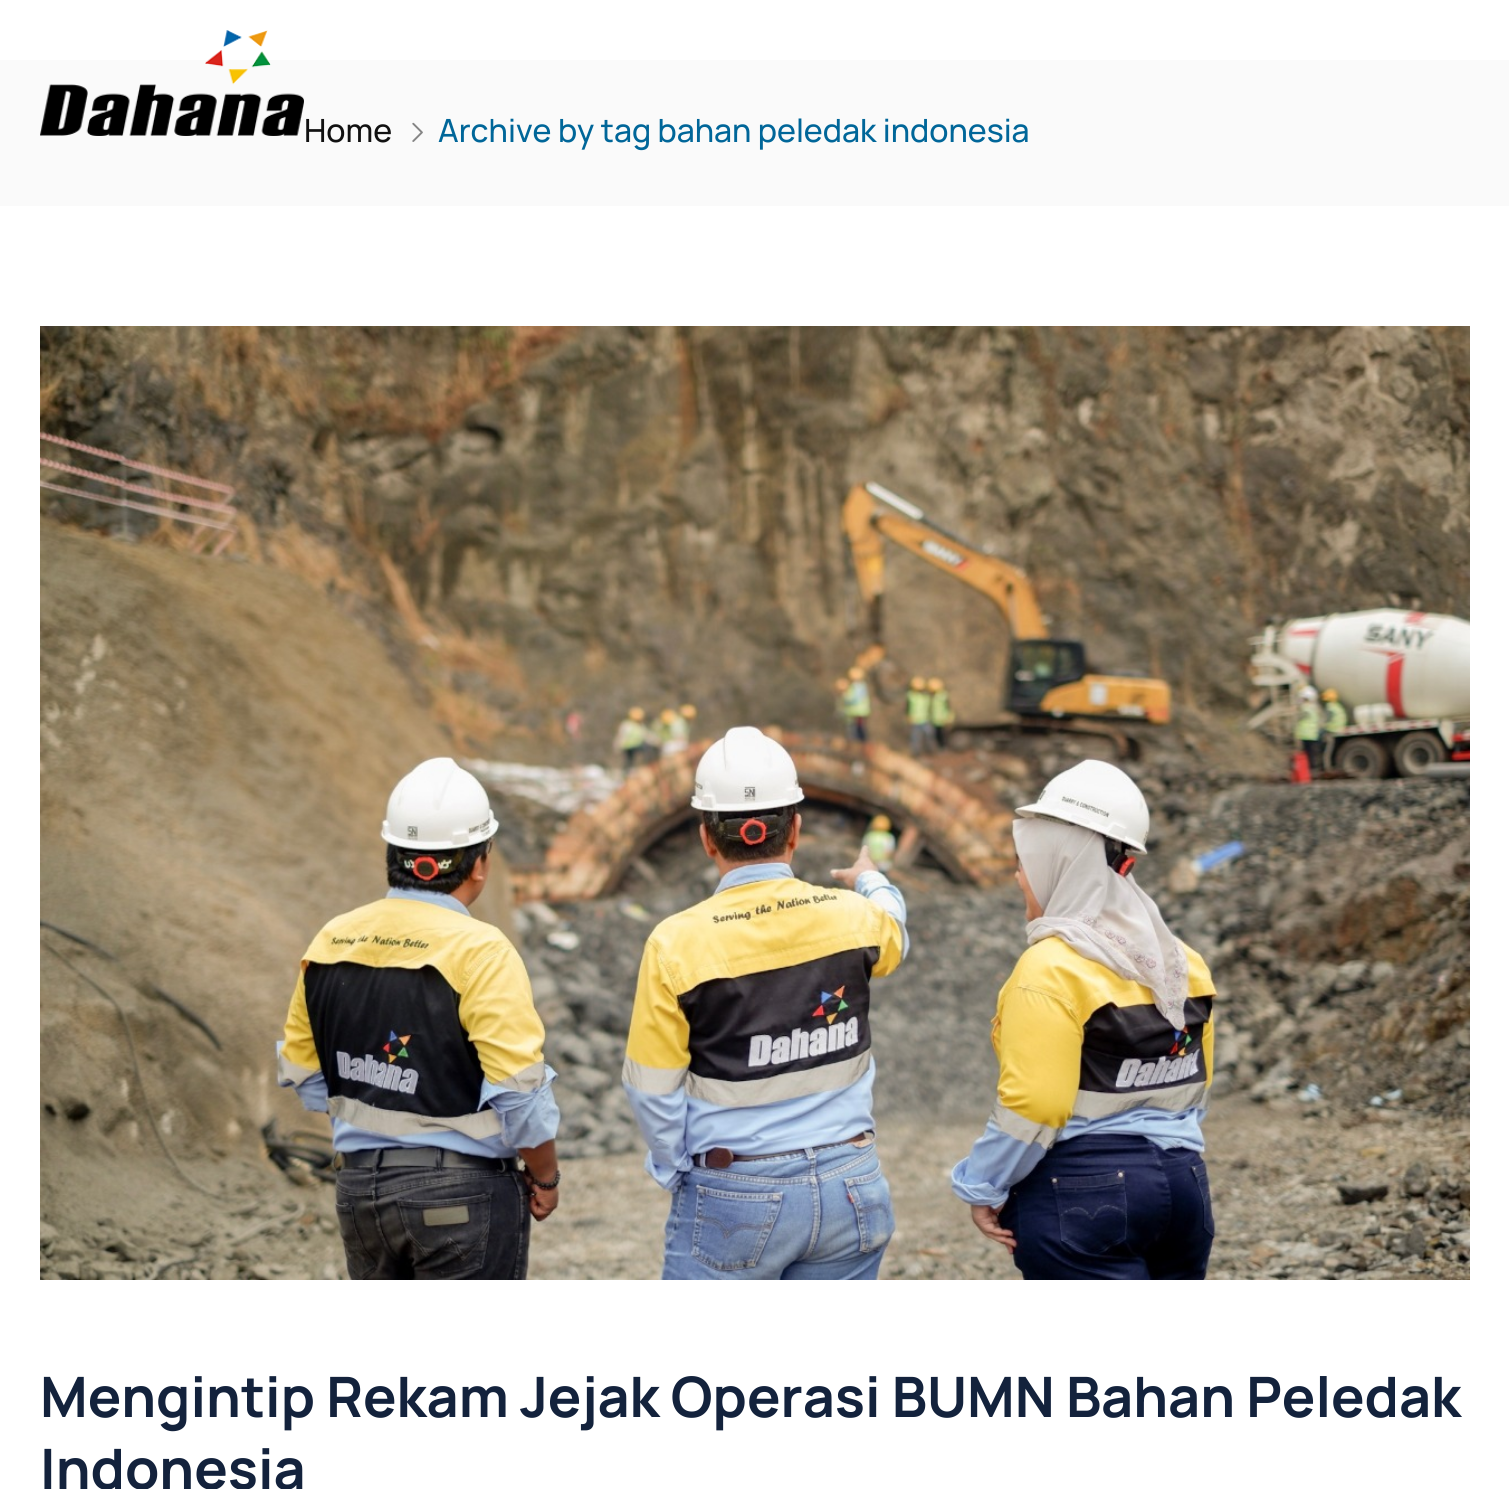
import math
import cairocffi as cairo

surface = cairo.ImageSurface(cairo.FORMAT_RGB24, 1509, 1489)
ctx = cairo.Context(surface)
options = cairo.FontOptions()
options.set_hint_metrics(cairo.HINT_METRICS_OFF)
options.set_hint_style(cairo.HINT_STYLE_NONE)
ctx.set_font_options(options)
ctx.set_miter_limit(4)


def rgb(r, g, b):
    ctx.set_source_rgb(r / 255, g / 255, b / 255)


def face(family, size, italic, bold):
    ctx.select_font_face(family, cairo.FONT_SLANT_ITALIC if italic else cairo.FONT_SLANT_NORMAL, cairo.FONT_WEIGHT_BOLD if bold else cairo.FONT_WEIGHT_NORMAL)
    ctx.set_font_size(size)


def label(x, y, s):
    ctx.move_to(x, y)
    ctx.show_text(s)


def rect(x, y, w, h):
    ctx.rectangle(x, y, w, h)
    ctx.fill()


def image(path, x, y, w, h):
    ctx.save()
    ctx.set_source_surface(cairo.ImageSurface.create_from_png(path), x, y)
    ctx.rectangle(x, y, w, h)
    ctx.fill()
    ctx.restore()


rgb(255, 255, 255)
ctx.paint()
rgb(250, 250, 250)
rect(0, 60, 1509, 146)
image('image0.png', 40, 30, 264, 106)
face('Manrope Medium', 32, 0, 0)
rgb(17, 17, 17)
label(304, 142, 'Home')
image('image1.png', 412, 122, 11, 20)
rgb(0, 102, 153)
label(438, 142, 'Archive by tag bahan peledak indonesia')
image('image2.png', 40, 326, 1430, 954)
face('Manrope', 55.75, 0, 1)
rgb(19, 34, 60)
label(40, 1417, 'Mengintip Rekam Jejak Operasi BUMN Bahan Peledak')
label(40, 1489, 'Indonesia')
surface.write_to_png('render.png')
